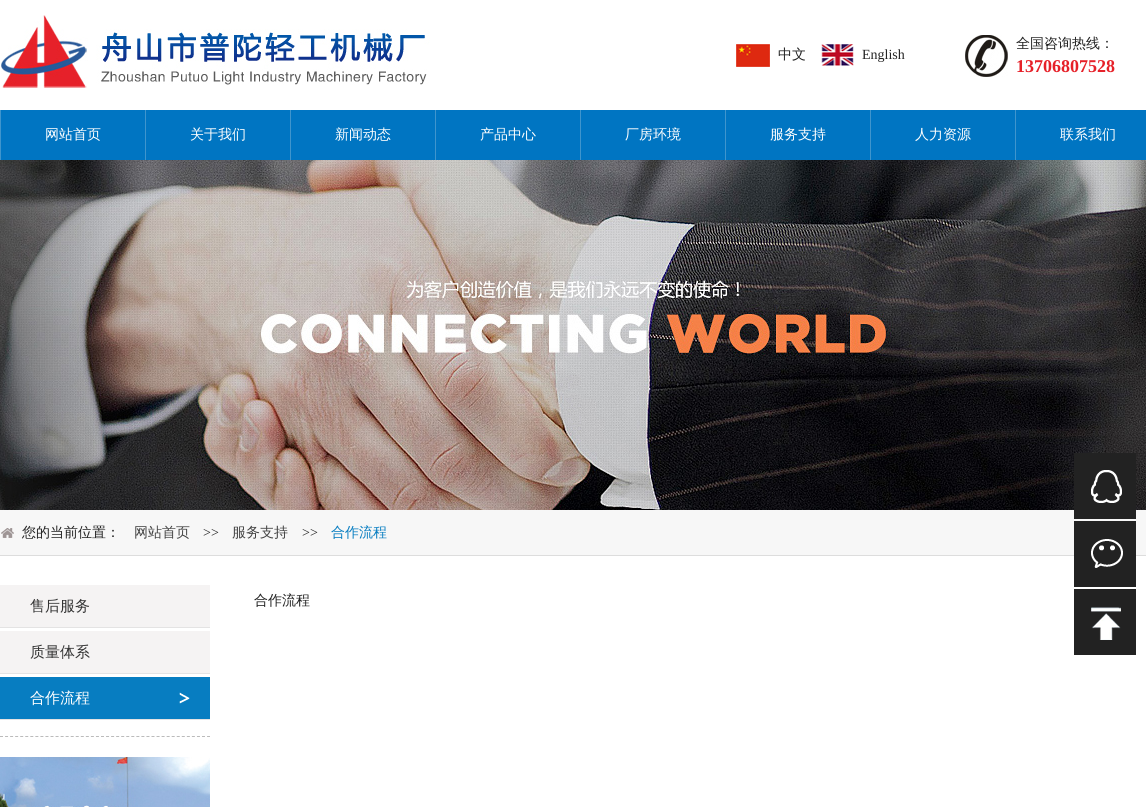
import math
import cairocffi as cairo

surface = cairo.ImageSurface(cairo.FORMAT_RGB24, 1146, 807)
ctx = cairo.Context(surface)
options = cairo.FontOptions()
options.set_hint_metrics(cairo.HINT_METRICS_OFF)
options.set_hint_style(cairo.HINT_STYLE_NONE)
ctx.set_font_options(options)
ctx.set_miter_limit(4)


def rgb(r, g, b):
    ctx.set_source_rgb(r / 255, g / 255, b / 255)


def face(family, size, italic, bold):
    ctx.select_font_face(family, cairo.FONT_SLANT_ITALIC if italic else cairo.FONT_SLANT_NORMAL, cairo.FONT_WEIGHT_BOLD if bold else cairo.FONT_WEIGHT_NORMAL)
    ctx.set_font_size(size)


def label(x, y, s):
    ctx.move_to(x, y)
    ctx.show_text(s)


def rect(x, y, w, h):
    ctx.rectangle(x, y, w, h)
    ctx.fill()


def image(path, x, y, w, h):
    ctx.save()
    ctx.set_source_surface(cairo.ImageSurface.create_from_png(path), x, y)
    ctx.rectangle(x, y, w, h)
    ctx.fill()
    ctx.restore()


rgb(255, 255, 255)
ctx.paint()
image('image0.png', 1, 15, 429, 73)
image('image1.png', 736, 44, 34, 23)
face('WenQuanYi Zen Hei Medium', 14, 0, 0)
rgb(34, 34, 34)
label(778, 59, '中文')
image('image2.png', 821, 44, 33, 22)
face('Liberation Serif', 14, 0, 0)
label(862, 59, 'English')
image('image3.png', 965, 35, 43, 42)
face('WenQuanYi Zen Hei Medium', 14, 0, 0)
label(1016, 48, '全国咨询热线：')
face('Liberation Serif', 18, 0, 1)
rgb(230, 33, 41)
label(1016, 72, '13706807528')
rgb(0, 117, 194)
rect(1, 110, 1145, 50)
rgb(63, 149, 205)
rect(0, 110, 1, 50)
rect(145, 110, 1, 50)
face('WenQuanYi Zen Hei Medium', 14, 0, 0)
rgb(255, 255, 255)
label(45, 139, '网站首页')
rgb(63, 149, 205)
rect(290, 110, 1, 50)
rgb(255, 255, 255)
label(190, 139, '关于我们')
rgb(63, 149, 205)
rect(435, 110, 1, 50)
rgb(255, 255, 255)
label(335, 139, '新闻动态')
rgb(63, 149, 205)
rect(580, 110, 1, 50)
rgb(255, 255, 255)
label(480, 139, '产品中心')
rgb(63, 149, 205)
rect(725, 110, 1, 50)
rgb(255, 255, 255)
label(625, 139, '厂房环境')
rgb(63, 149, 205)
rect(870, 110, 1, 50)
rgb(255, 255, 255)
label(770, 139, '服务支持')
rgb(63, 149, 205)
rect(1015, 110, 1, 50)
rgb(255, 255, 255)
label(915, 139, '人力资源')
label(1060, 139, '联系我们')
image('image4.png', 0, 160, 1146, 350)
rgb(247, 247, 247)
rect(0, 510, 1146, 45)
rgb(221, 221, 221)
rect(0, 555, 1146, 1)
image('image5.png', 1, 528, 13, 10)
rgb(34, 34, 34)
label(22, 537, '您的当前位置：')
rgb(68, 68, 68)
label(134, 537, '网站首页')
face('Liberation Serif', 14, 0, 0)
rgb(34, 34, 34)
label(203, 537, '>>')
face('WenQuanYi Zen Hei Medium', 14, 0, 0)
rgb(68, 68, 68)
label(232, 537, '服务支持')
face('Liberation Serif', 14, 0, 0)
rgb(34, 34, 34)
label(302, 537, '>>')
face('WenQuanYi Zen Hei Medium', 14, 0, 0)
rgb(7, 125, 193)
label(331, 537, '合作流程')
rgb(34, 34, 34)
rect(1074, 453, 62, 66)
image('image6.png', 1091, 470, 31, 33)
rect(1074, 521, 62, 66)
image('image7.png', 1091, 539, 32, 29)
rect(1074, 589, 62, 66)
image('image8.png', 1091, 607, 30, 33)
rgb(245, 243, 243)
rect(0, 585, 210, 42)
rgb(228, 227, 227)
rect(0, 627, 210, 1)
face('WenQuanYi Zen Hei Medium', 15, 0, 0)
rgb(51, 51, 51)
label(30, 611, '售后服务')
rgb(245, 243, 243)
rect(0, 631, 210, 42)
rgb(228, 227, 227)
rect(0, 673, 210, 1)
rgb(51, 51, 51)
label(30, 657, '质量体系')
rgb(228, 227, 227)
rect(0, 719, 210, 1)
rgb(7, 125, 193)
rect(0, 677, 210, 42)
image('image9.png', 179, 692, 11, 12)
rgb(255, 255, 255)
label(30, 703, '合作流程')
ctx.new_path()
ctx.move_to(0, 736.5)
ctx.line_to(210, 736.5)
rgb(187, 187, 187)
ctx.set_line_width(1)
ctx.set_dash([3, 2.05])
ctx.stroke()
image('image10.png', 0, 757, 210, 50)
face('WenQuanYi Zen Hei Medium', 14, 0, 0)
rgb(34, 34, 34)
label(254, 605, '合作流程')
surface.write_to_png('render.png')
